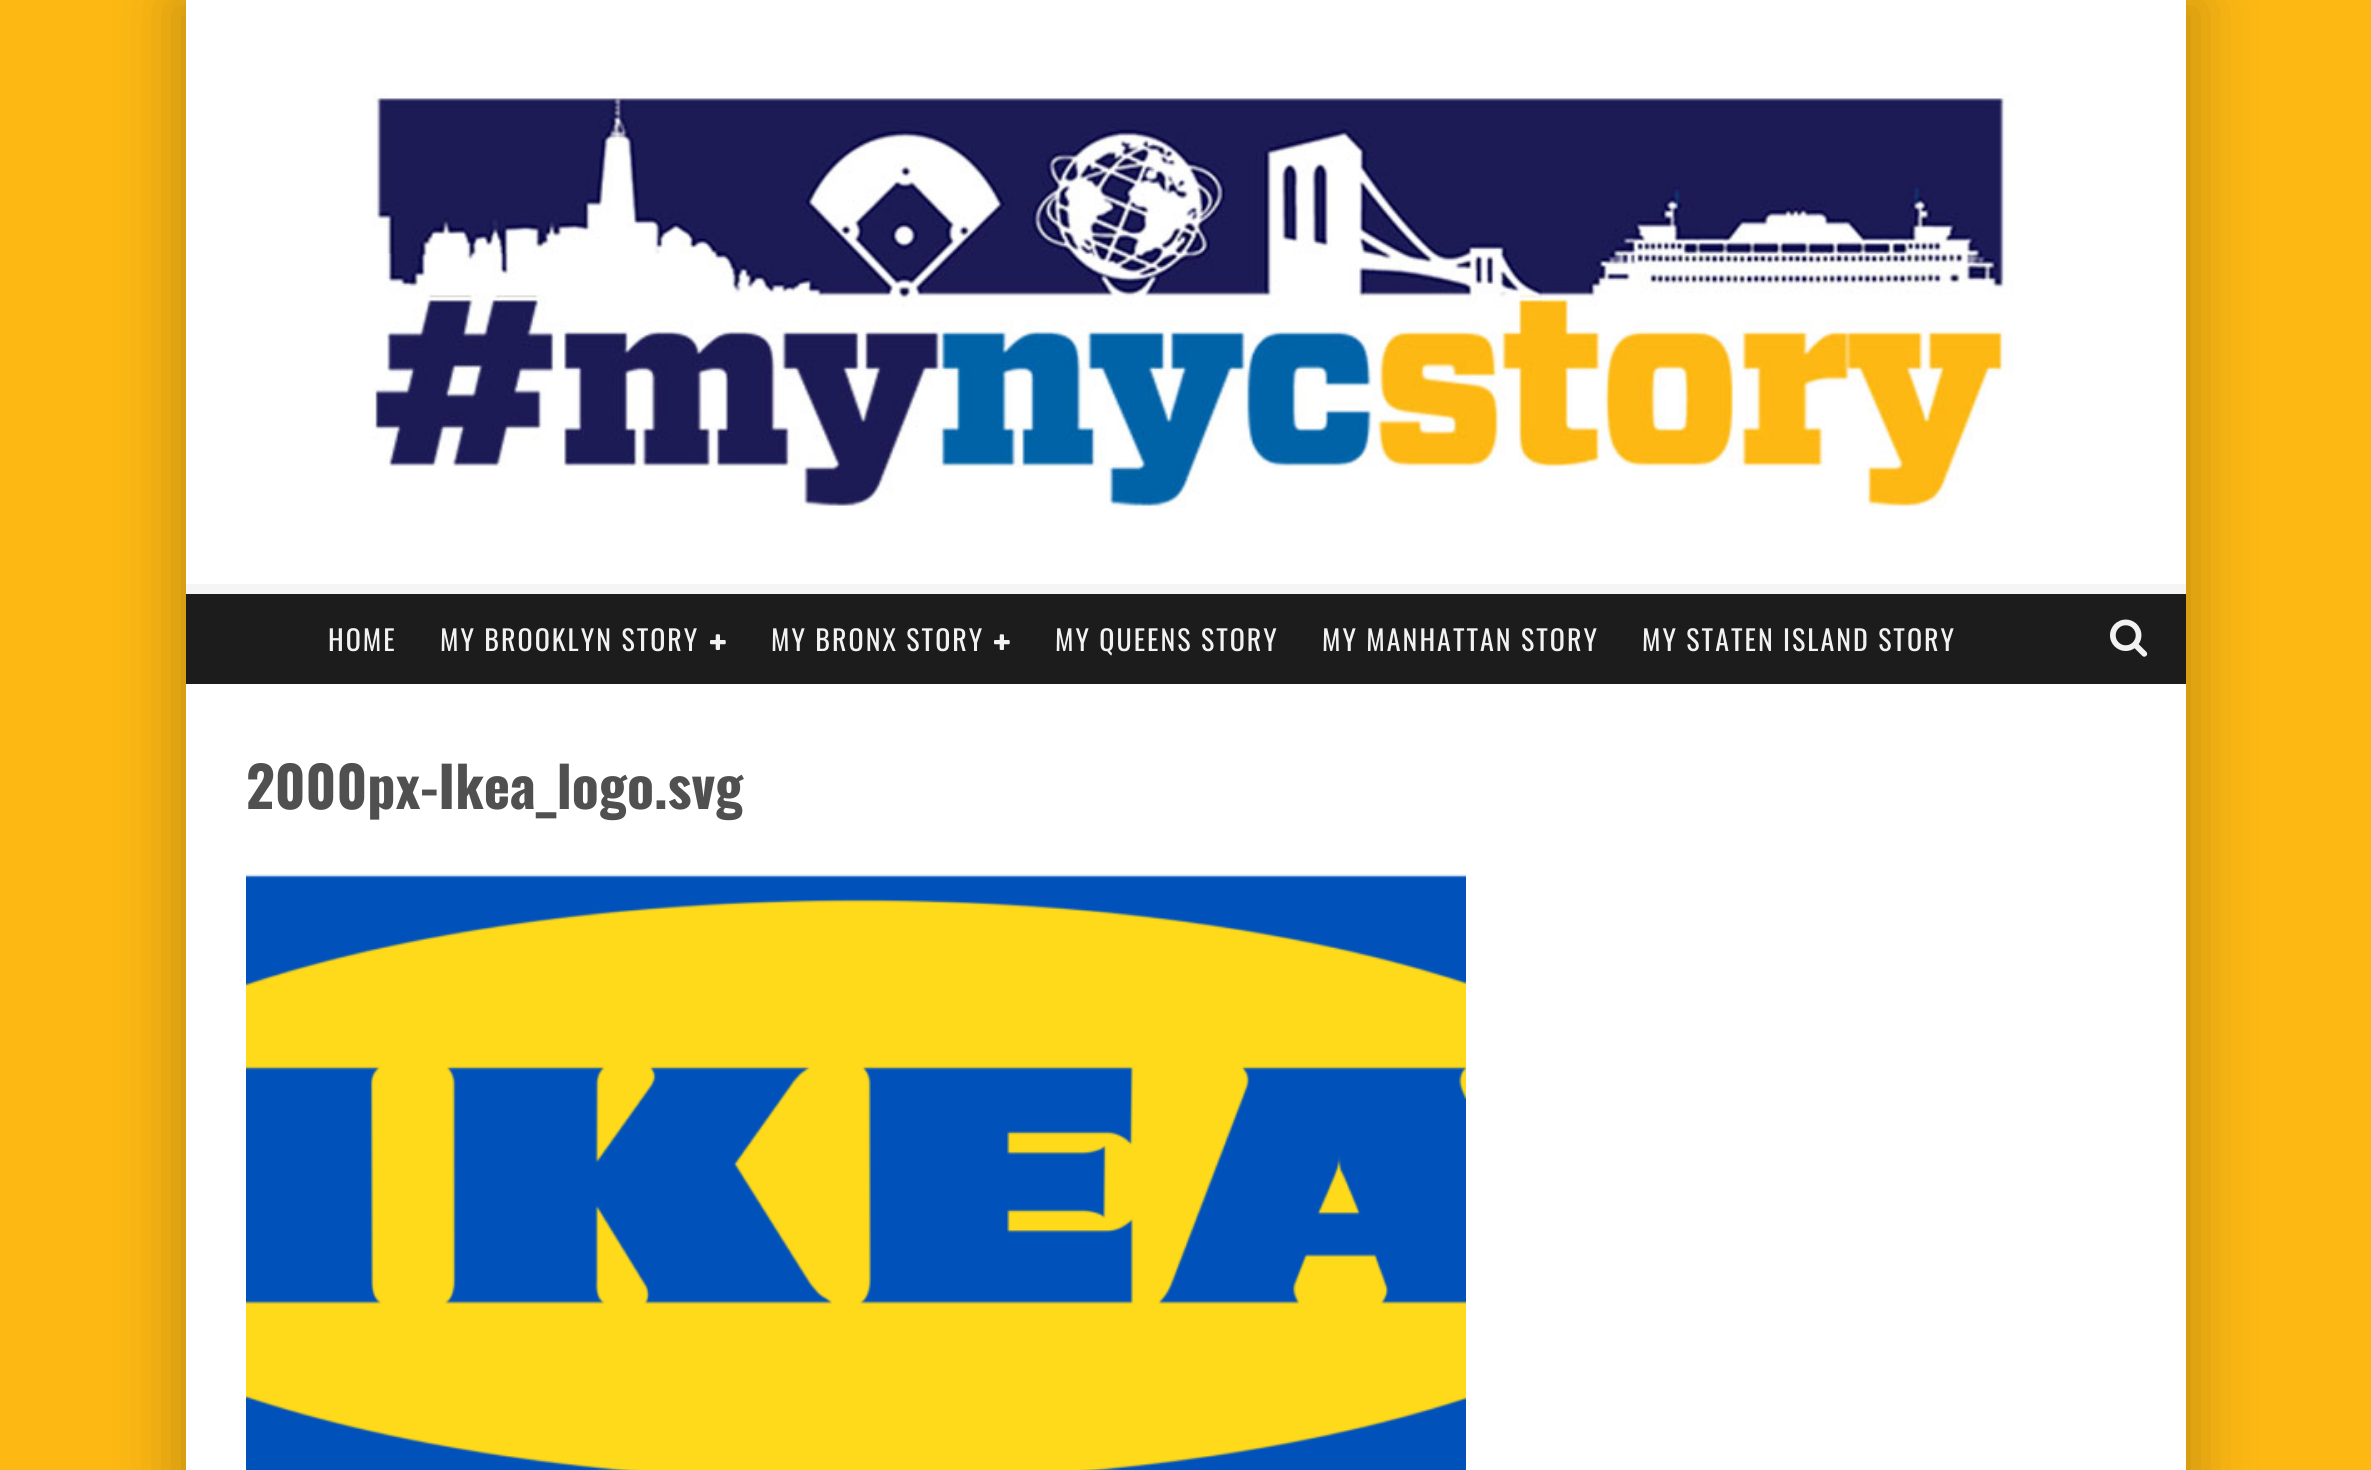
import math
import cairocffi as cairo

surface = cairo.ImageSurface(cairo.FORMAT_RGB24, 2371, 1470)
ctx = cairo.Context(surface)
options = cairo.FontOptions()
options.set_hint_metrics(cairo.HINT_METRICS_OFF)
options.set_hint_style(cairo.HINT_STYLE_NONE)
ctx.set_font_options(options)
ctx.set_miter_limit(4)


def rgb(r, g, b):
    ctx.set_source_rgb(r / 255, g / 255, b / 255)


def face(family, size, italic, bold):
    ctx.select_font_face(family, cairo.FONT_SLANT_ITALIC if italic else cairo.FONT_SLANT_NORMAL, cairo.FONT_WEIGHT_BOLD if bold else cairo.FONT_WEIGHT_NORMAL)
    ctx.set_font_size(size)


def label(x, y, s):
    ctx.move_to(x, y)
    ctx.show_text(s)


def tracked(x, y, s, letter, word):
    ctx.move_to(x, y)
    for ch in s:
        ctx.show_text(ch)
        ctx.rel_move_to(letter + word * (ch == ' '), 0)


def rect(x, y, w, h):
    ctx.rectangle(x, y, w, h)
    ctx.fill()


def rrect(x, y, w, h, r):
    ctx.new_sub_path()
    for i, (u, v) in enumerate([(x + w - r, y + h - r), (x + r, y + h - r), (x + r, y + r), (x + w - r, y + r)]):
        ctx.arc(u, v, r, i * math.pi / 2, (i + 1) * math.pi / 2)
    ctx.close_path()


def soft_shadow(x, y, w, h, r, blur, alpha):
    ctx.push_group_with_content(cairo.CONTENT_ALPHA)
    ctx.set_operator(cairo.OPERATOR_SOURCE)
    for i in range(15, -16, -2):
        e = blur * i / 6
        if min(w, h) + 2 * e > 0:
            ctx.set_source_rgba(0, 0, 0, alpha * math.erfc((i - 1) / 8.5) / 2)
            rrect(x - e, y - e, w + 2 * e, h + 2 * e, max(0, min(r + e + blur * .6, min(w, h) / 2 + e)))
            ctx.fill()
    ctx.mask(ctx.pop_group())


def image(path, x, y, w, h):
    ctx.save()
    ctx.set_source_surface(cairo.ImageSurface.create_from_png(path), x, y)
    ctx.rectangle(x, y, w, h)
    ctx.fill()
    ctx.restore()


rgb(253, 184, 19)
ctx.paint()
rgb(0, 0, 0)
soft_shadow(166, 0, 2000, 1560, 0, 30, 0.15)
soft_shadow(206, 0, 2000, 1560, 0, 30, 0.15)
rgb(245, 245, 245)
rect(186, 584, 2000, 10)
image('image0.png', 186, 0, 2000, 584)
rgb(28, 28, 28)
rect(186, 594, 2000, 90)
face('Oswald', 28, 0, 0)
rgb(242, 242, 242)
tracked(328, 651, 'HOME', 2, 0)
tracked(440, 651, 'MY BROOKLYN STORY', 2, 0)
image('image1.png', 710, 634, 16, 16)
tracked(771, 651, 'MY BRONX STORY', 2, 0)
image('image1.png', 994, 634, 16, 16)
tracked(1055, 651, 'MY QUEENS STORY', 2, 0)
tracked(1322, 651, 'MY MANHATTAN STORY', 2, 0)
tracked(1642, 651, 'MY STATEN ISLAND STORY', 2, 0)
image('image2.png', 2110, 619, 38, 38)
rgb(255, 255, 255)
rect(186, 684, 2000, 786)
face('Oswald', 56, 0, 1)
rgb(80, 80, 80)
label(246, 809, '2000px-Ikea_logo.svg')
image('image3.png', 246, 874, 1220, 596)
surface.write_to_png('render.png')
